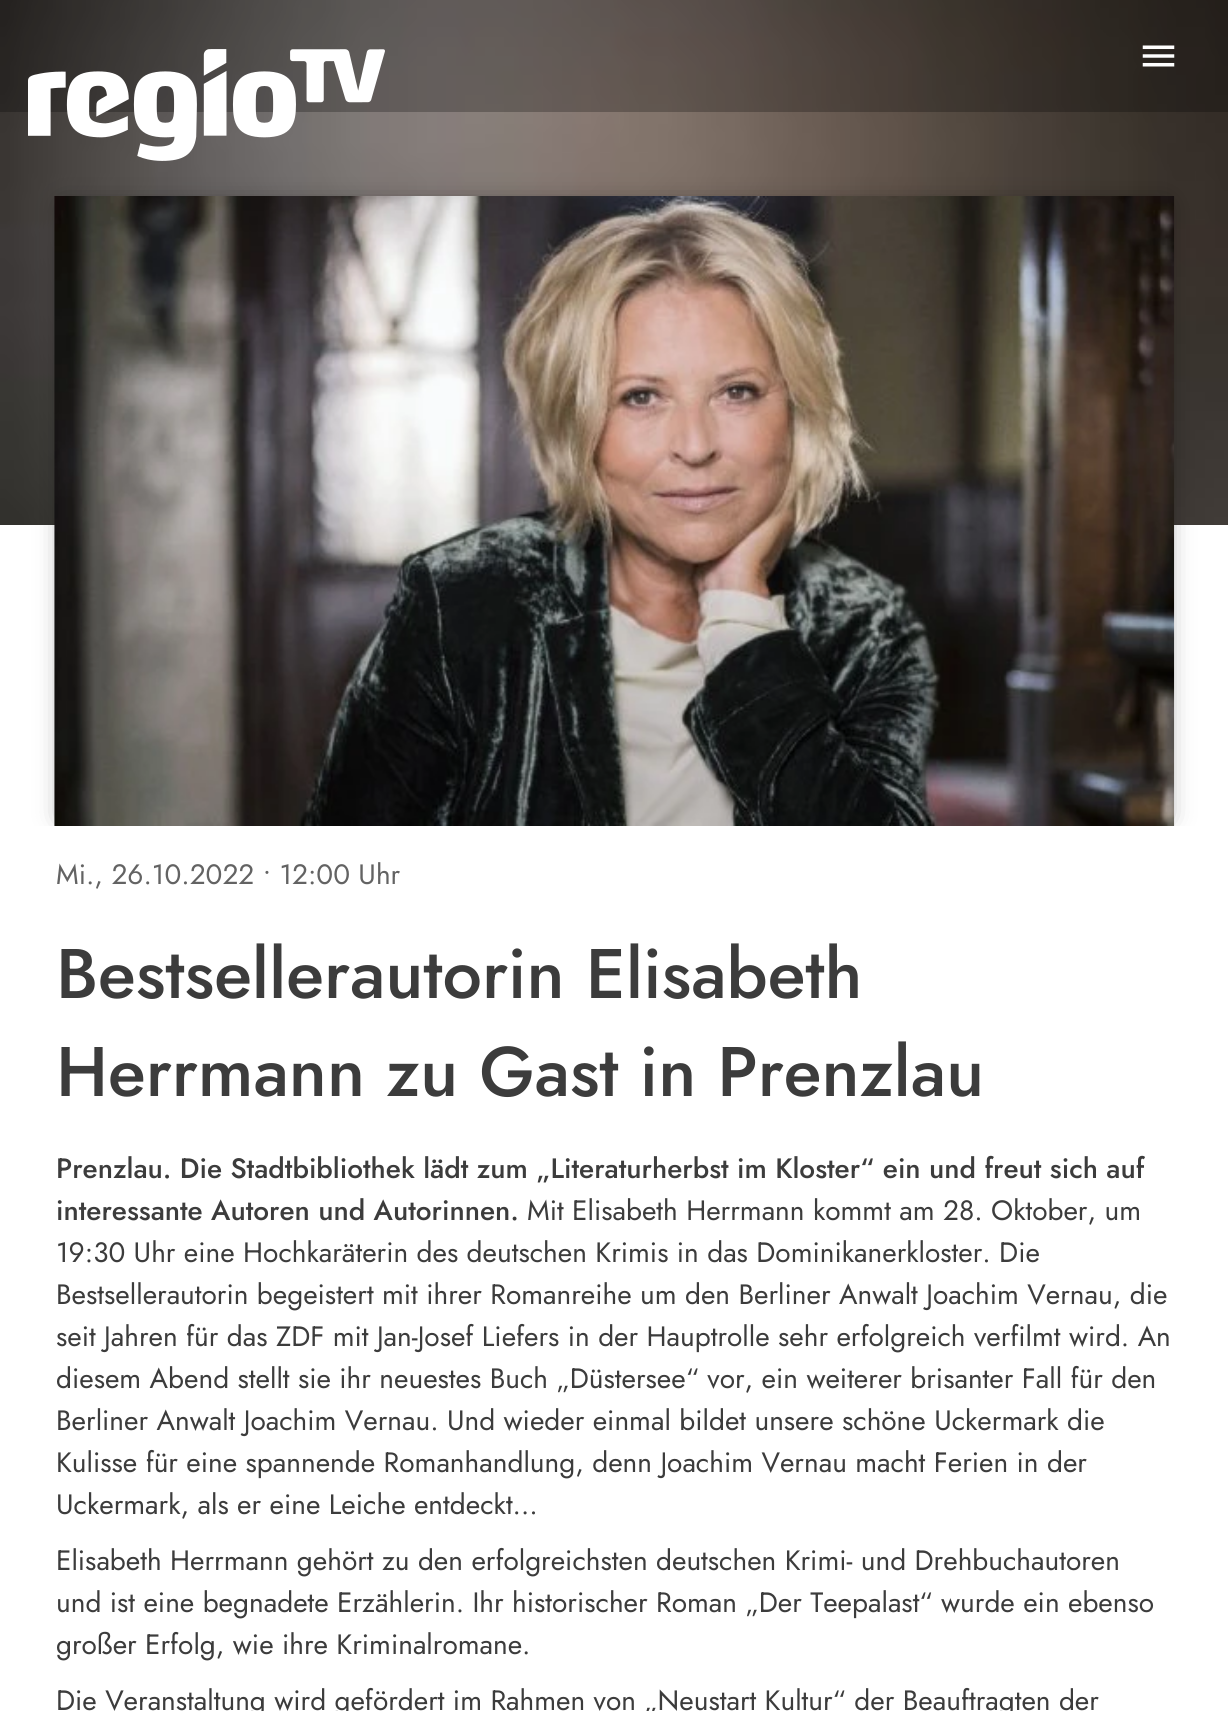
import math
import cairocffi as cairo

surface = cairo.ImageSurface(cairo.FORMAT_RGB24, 1228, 1711)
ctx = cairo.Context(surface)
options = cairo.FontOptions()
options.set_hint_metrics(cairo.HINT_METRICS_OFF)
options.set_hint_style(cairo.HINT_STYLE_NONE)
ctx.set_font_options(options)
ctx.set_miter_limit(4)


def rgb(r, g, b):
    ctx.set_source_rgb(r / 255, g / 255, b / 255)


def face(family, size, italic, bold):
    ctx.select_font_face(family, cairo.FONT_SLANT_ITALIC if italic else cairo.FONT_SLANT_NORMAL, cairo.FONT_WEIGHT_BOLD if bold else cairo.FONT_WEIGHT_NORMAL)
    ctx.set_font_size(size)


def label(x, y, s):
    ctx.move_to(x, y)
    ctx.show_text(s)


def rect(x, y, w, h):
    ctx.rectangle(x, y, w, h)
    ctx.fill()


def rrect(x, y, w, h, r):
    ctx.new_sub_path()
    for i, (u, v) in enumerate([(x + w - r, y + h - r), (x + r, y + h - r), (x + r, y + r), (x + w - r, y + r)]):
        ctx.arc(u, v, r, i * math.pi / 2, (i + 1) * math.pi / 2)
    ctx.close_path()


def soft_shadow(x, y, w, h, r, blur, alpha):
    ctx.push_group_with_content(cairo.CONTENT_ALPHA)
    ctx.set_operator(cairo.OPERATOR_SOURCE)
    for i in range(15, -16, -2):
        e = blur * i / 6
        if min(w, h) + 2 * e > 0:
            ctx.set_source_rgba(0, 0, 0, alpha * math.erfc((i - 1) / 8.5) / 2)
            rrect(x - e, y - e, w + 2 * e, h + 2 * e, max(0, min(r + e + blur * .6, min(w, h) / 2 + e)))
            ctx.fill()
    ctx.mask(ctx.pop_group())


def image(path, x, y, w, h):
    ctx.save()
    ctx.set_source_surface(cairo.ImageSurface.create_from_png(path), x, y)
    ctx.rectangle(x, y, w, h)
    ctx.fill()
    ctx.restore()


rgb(255, 255, 255)
ctx.paint()
image('image2.png', 0, 0, 1228, 525)
ctx.set_source_rgba(0, 0, 0, 0.25)
rect(0, 0, 1228, 112)
image('image0.png', 28, 49, 357, 112)
image('image1.png', 1142, 45, 33, 22)
ctx.save()
ctx.rectangle(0, 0, 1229, 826)
ctx.clip()
rgb(0, 0, 0)
soft_shadow(63, 205, 1103, 612, 0, 13, 0.4)
ctx.restore()
image('image3.png', 54, 196, 1121, 630)
face('Jost', 28, 0, 0)
rgb(99, 99, 99)
label(56, 884, 'Mi., 26.10.2022 • 12:00 Uhr')
face('Jost Medium', 70, 0, 0)
rgb(60, 60, 60)
label(56, 998, 'Bestsellerautorin Elisabeth')
label(56, 1096, 'Herrmann zu Gast in Prenzlau')
face('Jost Medium', 28, 0, 0)
label(56, 1178, 'Prenzlau. Die Stadtbibliothek lädt zum „Literaturherbst im Kloster“ ein und freut sich auf')
label(56, 1220, 'interessante Autoren und Autorinnen.')
face('Jost', 28, 0, 0)
label(527, 1220, 'Mit Elisabeth Herrmann kommt am 28. Oktober, um')
label(56, 1262, '19:30 Uhr eine Hochkaräterin des deutschen Krimis in das Dominikanerkloster. Die')
label(56, 1304, 'Bestsellerautorin begeistert mit ihrer Romanreihe um den Berliner Anwalt Joachim Vernau, die')
label(56, 1346, 'seit Jahren für das ZDF mit Jan-Josef Liefers in der Hauptrolle sehr erfolgreich verfilmt wird. An')
label(56, 1388, 'diesem Abend stellt sie ihr neuestes Buch „Düstersee“ vor, ein weiterer brisanter Fall für den')
label(56, 1430, 'Berliner Anwalt Joachim Vernau. Und wieder einmal bildet unsere schöne Uckermark die')
label(56, 1472, 'Kulisse für eine spannende Romanhandlung, denn Joachim Vernau macht Ferien in der')
label(56, 1514, 'Uckermark, als er eine Leiche entdeckt…')
label(56, 1570, 'Elisabeth Herrmann gehört zu den erfolgreichsten deutschen Krimi- und Drehbuchautoren')
label(56, 1612, 'und ist eine begnadete Erzählerin. Ihr historischer Roman „Der Teepalast“ wurde ein ebenso')
label(56, 1654, 'großer Erfolg, wie ihre Kriminalromane.')
label(56, 1710, 'Die Veranstaltung wird gefördert im Rahmen von „Neustart Kultur“ der Beauftragten der')
surface.write_to_png('render.png')
